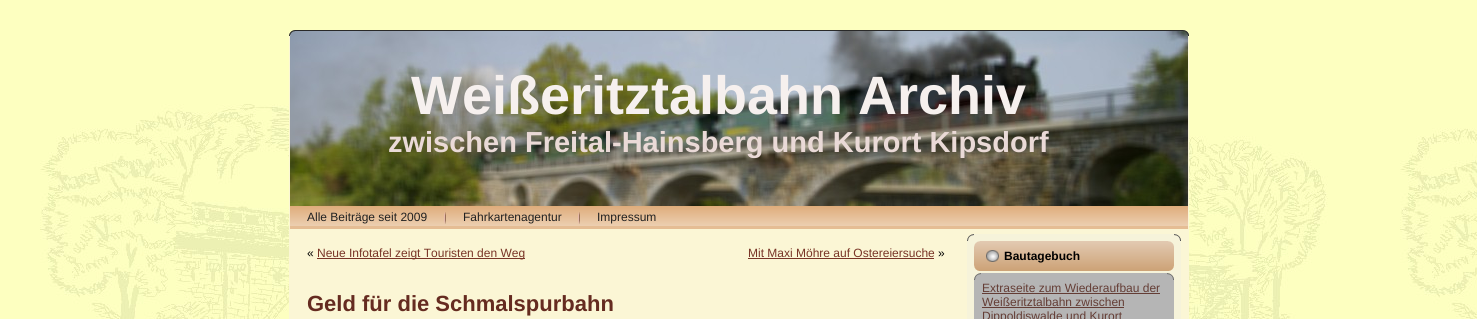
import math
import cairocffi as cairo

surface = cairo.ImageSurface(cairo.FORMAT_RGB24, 1477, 319)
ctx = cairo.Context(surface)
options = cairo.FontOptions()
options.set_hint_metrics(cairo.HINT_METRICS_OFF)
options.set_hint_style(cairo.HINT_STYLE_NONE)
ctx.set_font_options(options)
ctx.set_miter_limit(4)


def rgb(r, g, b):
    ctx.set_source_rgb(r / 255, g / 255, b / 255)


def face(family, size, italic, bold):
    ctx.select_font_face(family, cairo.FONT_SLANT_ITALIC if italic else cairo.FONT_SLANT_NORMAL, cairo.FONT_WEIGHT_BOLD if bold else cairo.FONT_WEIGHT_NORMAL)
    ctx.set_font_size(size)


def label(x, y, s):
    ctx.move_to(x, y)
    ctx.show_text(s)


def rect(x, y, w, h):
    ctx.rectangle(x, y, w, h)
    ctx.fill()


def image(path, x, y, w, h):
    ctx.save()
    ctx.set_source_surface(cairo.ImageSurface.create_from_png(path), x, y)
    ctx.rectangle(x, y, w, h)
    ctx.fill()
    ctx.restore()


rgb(255, 255, 255)
ctx.paint()
image('image0.png', 0, 0, 1477, 319)
image('image1.png', 289, 30, 6, 6)
rgb(41, 41, 41)
rect(295, 30, 888, 1)
image('image2.png', 1183, 30, 6, 6)
rgb(251, 246, 213)
rect(289, 36, 6, 283)
rect(1183, 36, 6, 283)
image('image3.png', 290, 31, 898, 175)
image('image4.png', 295, 36, 888, 165)
face('Liberation Sans', 54, 0, 1)
rgb(246, 240, 238)
label(411, 114, 'Weißeritztalbahn Archiv')
face('Liberation Sans', 29, 0, 1)
rgb(234, 218, 215)
label(388, 152, 'zwischen Freital-Hainsberg und Kurort Kipsdorf')
image('image5.png', 290, 206, 898, 23)
face('Liberation Sans', 12, 0, 0)
rgb(33, 33, 33)
label(307, 221, 'Alle Beiträge seit 2009')
image('image6.png', 444, 212, 2, 12)
label(463, 221, 'Fahrkartenagentur')
image('image6.png', 578, 212, 2, 12)
label(597, 221, 'Impressum')
rgb(251, 246, 213)
rect(295, 229, 888, 90)
rgb(0, 0, 0)
label(307, 257, '«')
rgb(120, 52, 38)
rect(317, 258, 208, 1)
label(317, 257, 'Neue Infotafel zeigt Touristen den Weg')
label(748, 257, 'Mit Maxi Möhre auf Ostereiersuche')
rect(748, 258, 186, 1)
rgb(0, 0, 0)
label(938, 257, '»')
face('Liberation Sans', 22, 0, 1)
rgb(101, 43, 32)
label(307, 311, 'Geld für die Schmalspurbahn')
image('image7.png', 967, 234, 7, 7)
rgb(246, 243, 218)
rect(974, 234, 200, 46)
image('image8.png', 1174, 234, 7, 7)
rect(967, 241, 7, 78)
image('image9.png', 974, 241, 194, 30)
image('image10.png', 1168, 241, 6, 30)
image('image11.png', 986, 250, 13, 12)
face('Liberation Sans', 12, 0, 1)
rgb(0, 0, 0)
label(1004, 260, 'Bautagebuch')
image('image12.png', 974, 273, 7, 7)
rgb(181, 181, 181)
rect(981, 273, 186, 7)
image('image13.png', 1167, 273, 7, 7)
rect(974, 280, 7, 39)
rect(981, 280, 193, 39)
face('Liberation Sans', 12, 0, 0)
rgb(100, 61, 53)
label(982, 292, 'Extraseite zum Wiederaufbau der')
rect(982, 293, 178, 1)
label(982, 306, 'Weißeritztalbahn zwischen')
rect(982, 307, 142, 1)
label(982, 320, 'Dippoldiswalde und Kurort')
rgb(246, 243, 218)
rect(1174, 241, 7, 78)
surface.write_to_png('render.png')
